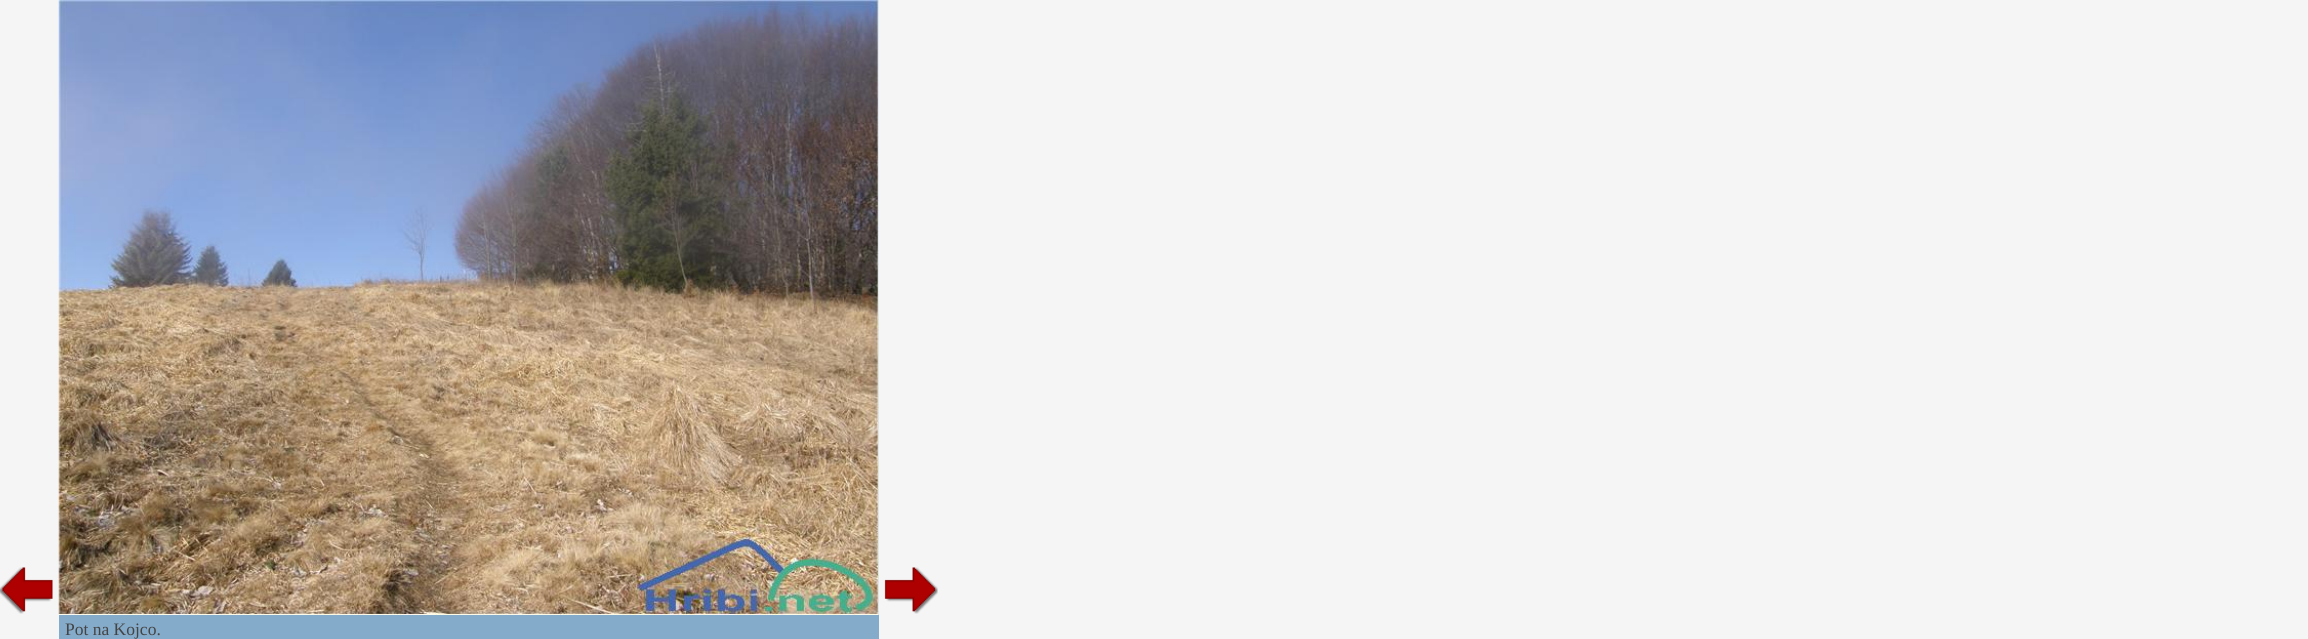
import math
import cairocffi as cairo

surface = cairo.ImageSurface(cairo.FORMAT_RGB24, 2308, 639)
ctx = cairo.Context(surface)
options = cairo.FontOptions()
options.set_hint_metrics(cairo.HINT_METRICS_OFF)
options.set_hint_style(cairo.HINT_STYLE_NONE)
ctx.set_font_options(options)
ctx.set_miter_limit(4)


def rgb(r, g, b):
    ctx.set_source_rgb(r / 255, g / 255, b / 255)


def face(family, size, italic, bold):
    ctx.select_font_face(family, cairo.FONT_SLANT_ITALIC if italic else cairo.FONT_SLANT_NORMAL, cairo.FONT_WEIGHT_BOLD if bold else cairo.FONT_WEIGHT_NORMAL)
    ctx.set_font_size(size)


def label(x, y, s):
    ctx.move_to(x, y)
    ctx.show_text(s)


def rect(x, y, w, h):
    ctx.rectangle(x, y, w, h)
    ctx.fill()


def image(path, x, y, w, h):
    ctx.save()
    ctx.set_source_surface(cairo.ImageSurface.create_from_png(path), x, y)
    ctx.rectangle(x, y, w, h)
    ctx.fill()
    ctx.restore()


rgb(245, 245, 245)
ctx.paint()
image('image0.png', 0, 567, 53, 47)
image('image1.png', 884, 567, 54, 47)
rgb(133, 171, 202)
rect(59, 0, 820, 639)
image('image2.png', 58, 0, 821, 615)
face('Liberation Serif', 17.5, 0, 0)
rgb(68, 68, 68)
label(65, 635, 'Pot na Kojco.')
surface.write_to_png('render.png')
